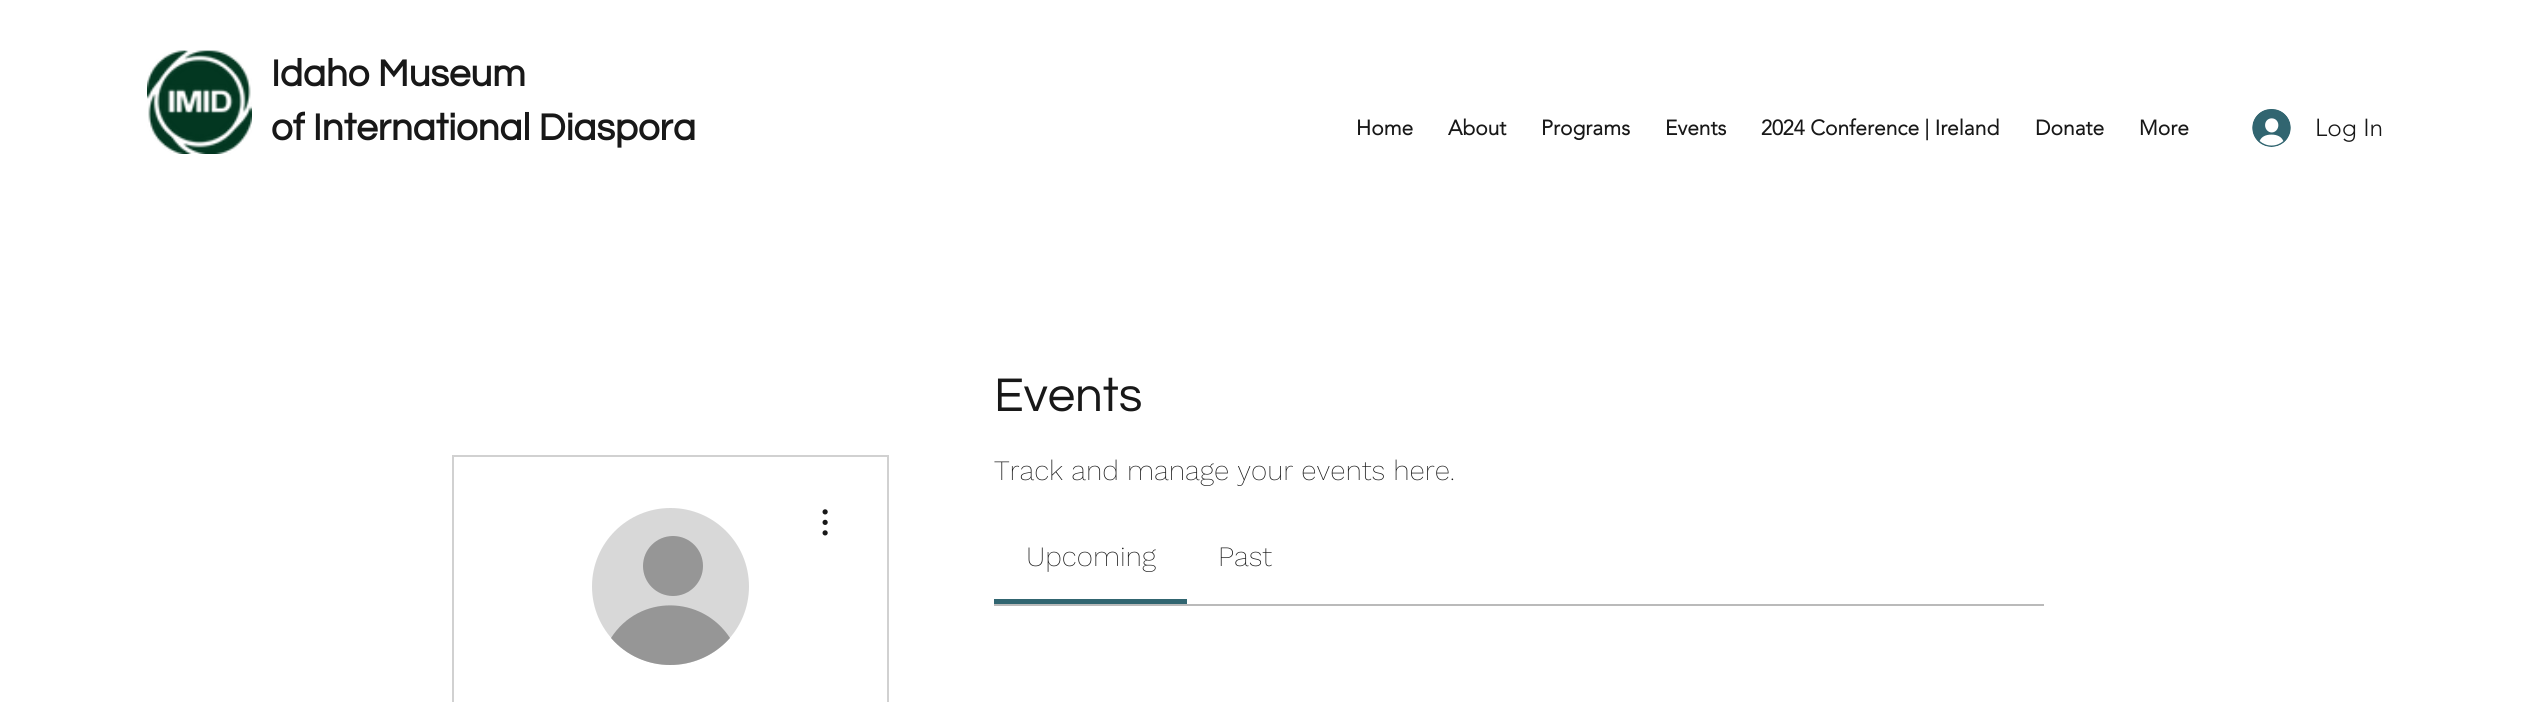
import math
import cairocffi as cairo

surface = cairo.ImageSurface(cairo.FORMAT_RGB24, 2547, 702)
ctx = cairo.Context(surface)
options = cairo.FontOptions()
options.set_hint_metrics(cairo.HINT_METRICS_OFF)
options.set_hint_style(cairo.HINT_STYLE_NONE)
ctx.set_font_options(options)
ctx.set_miter_limit(4)


def rgb(r, g, b):
    ctx.set_source_rgb(r / 255, g / 255, b / 255)


def face(family, size, italic, bold):
    ctx.select_font_face(family, cairo.FONT_SLANT_ITALIC if italic else cairo.FONT_SLANT_NORMAL, cairo.FONT_WEIGHT_BOLD if bold else cairo.FONT_WEIGHT_NORMAL)
    ctx.set_font_size(size)


def label(x, y, s):
    ctx.move_to(x, y)
    ctx.show_text(s)


def rect(x, y, w, h):
    ctx.rectangle(x, y, w, h)
    ctx.fill()


def image(path, x, y, w, h):
    ctx.save()
    ctx.set_source_surface(cairo.ImageSurface.create_from_png(path), x, y)
    ctx.rectangle(x, y, w, h)
    ctx.fill()
    ctx.restore()


rgb(255, 255, 255)
ctx.paint()
image('image0.png', 147, 50, 105, 104)
face('Questrial', 38.5, 0, 1)
rgb(24, 24, 24)
label(271, 86, 'Idaho Museum')
label(271, 140, 'of International Diaspora')
face('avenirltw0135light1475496', 21, 0, 1)
label(1356, 135, 'Home')
label(1448, 135, 'About')
label(1541, 135, 'Programs')
label(1665, 135, 'Events')
label(1761, 135, '2024 Conference | Ireland')
label(2035, 135, 'Donate')
label(2139, 135, 'More')
image('image1.png', 2252, 109, 39, 38)
face('avenirltw0135light1475496 Light', 24.5, 0, 0)
label(2315, 136, 'Log In')
ctx.rectangle(453, 456, 435, 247)
rgb(209, 209, 209)
ctx.stroke()
rgb(216, 216, 216)
ctx.arc(670.5, 586.5, 78.5, 0, 2 * math.pi)
ctx.fill()
rgb(150, 150, 150)
ctx.arc(673, 566, 30, 0, 2 * math.pi)
ctx.fill()
ctx.new_path()
ctx.move_to(730, 638)
ctx.curve_to(698, 674, 642, 674, 611, 638)
ctx.curve_to(639, 594, 702, 595, 730, 638)
ctx.close_path()
ctx.fill()
image('image2.png', 822, 509, 6, 27)
face('Questrial', 49, 0, 0)
rgb(24, 24, 24)
label(994, 411, 'Events')
face('Work Sans ExtraLight', 28, 0, 0)
label(994, 480, 'Track and manage your events here.')
rgb(49, 101, 112)
rect(994, 599, 193, 5)
rgb(24, 24, 24)
label(1026, 566, 'Upcoming')
label(1218, 566, 'Past')
rgb(186, 186, 186)
rect(994, 604, 1050, 2)
surface.write_to_png('render.png')
